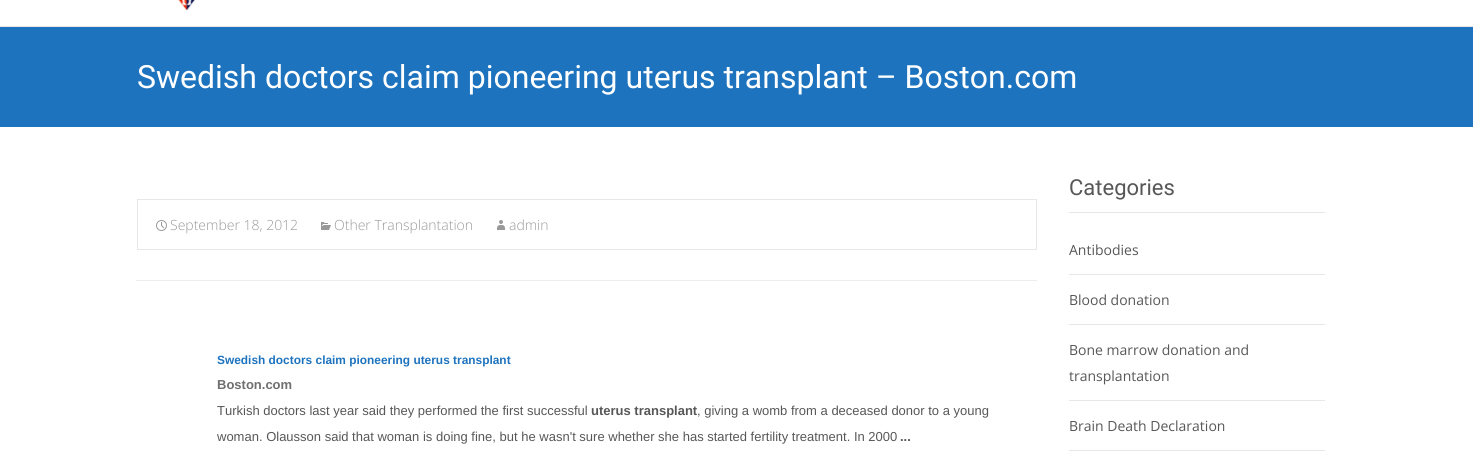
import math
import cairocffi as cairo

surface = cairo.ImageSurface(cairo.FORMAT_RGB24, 1473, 474)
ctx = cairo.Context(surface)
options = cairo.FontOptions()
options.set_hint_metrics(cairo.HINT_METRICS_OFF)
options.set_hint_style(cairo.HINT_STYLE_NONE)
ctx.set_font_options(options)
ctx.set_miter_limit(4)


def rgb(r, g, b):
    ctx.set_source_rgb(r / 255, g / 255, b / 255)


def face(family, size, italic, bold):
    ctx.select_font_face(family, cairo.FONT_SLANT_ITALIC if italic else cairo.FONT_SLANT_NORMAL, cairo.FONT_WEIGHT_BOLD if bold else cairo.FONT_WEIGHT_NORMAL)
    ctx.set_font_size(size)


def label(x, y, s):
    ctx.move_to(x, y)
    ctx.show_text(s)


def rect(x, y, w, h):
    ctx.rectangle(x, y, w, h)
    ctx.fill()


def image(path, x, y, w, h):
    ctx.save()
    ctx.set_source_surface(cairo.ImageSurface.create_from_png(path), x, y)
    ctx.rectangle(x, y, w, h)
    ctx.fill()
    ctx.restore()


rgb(255, 255, 255)
ctx.paint()
rgb(231, 231, 231)
rect(0, 26, 1473, 1)
image('image0.png', 178, 0, 17, 11)
rgb(30, 115, 190)
rect(0, 27, 1473, 100)
face('Roboto', 32, 0, 0)
rgb(255, 255, 255)
label(137, 88, 'Swedish doctors claim pioneering uterus transplant – Boston.com')
ctx.rectangle(137.5, 199.5, 899, 50)
rgb(231, 231, 231)
ctx.set_line_width(1)
ctx.stroke()
image('image1.png', 156, 220, 11, 11)
face('Open Sans Light', 14, 0, 0)
rgb(153, 153, 153)
label(170, 230, 'September 18, 2012')
image('image2.png', 321, 222, 10, 8)
label(334, 230, 'Other Transplantation')
image('image3.png', 497, 220, 8, 10)
label(509, 230, 'admin')
rgb(237, 237, 237)
rect(136, 280, 901, 1)
face('Liberation Sans', 11.9, 0, 1)
rgb(30, 115, 190)
label(217, 364, 'Swedish doctors claim pioneering uterus transplant')
face('Liberation Sans', 13, 0, 1)
rgb(111, 111, 111)
label(217, 389, 'Boston.com')
face('Liberation Sans', 13, 0, 0)
rgb(87, 87, 87)
label(217, 415, 'Turkish doctors last year said they performed the first successful')
face('Liberation Sans', 13, 0, 1)
label(591, 415, 'uterus transplant')
face('Liberation Sans', 13, 0, 0)
label(697, 415, ', giving a womb from a deceased donor to a young')
label(217, 441, 'woman. Olausson said that woman is doing fine, but he wasn\'t sure whether she has started fertility treatment. In 2000')
face('Liberation Sans', 13, 0, 1)
label(900, 441, '...')
rgb(231, 231, 231)
rect(1069, 212, 256, 1)
face('Roboto', 22, 0, 0)
rgb(87, 87, 87)
label(1069, 195, 'Categories')
rgb(231, 231, 231)
rect(1069, 274, 256, 1)
face('Open Sans', 14, 0, 0)
rgb(87, 87, 87)
label(1069, 255, 'Antibodies')
rgb(231, 231, 231)
rect(1069, 324, 256, 1)
rgb(87, 87, 87)
label(1069, 305, 'Blood donation')
rgb(231, 231, 231)
rect(1069, 400, 256, 1)
rgb(87, 87, 87)
label(1069, 355, 'Bone marrow donation and')
label(1069, 381, 'transplantation')
rgb(231, 231, 231)
rect(1069, 450, 256, 1)
rgb(87, 87, 87)
label(1069, 431, 'Brain Death Declaration')
surface.write_to_png('render.png')
